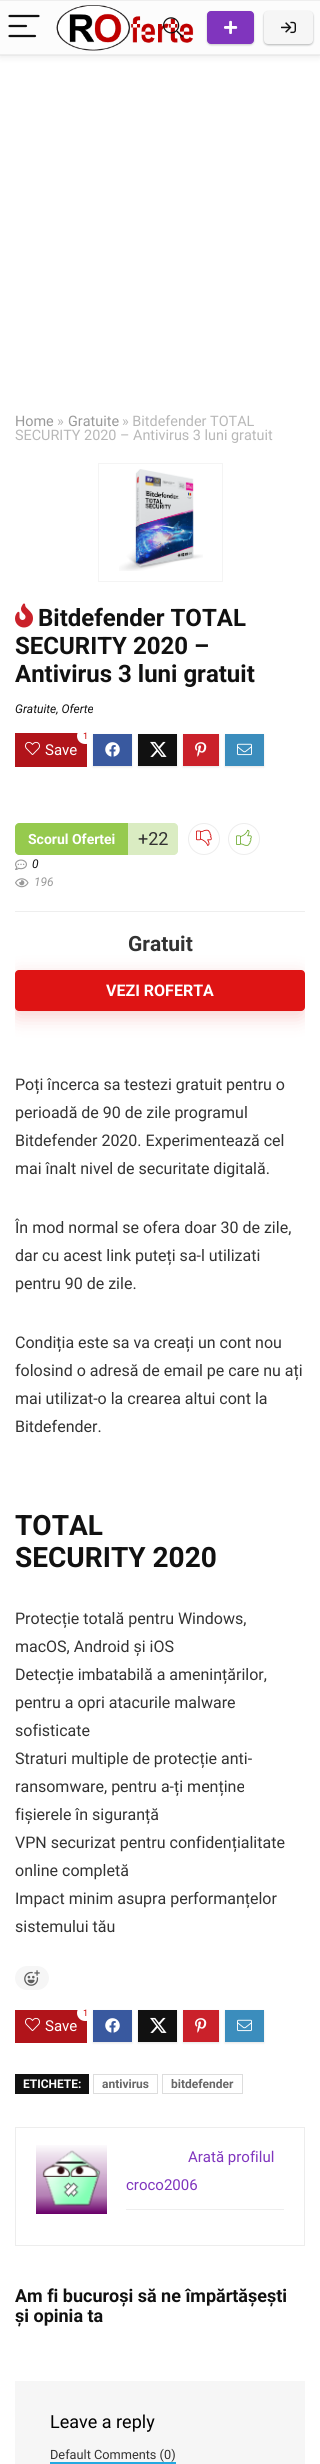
import math
import cairocffi as cairo

surface = cairo.ImageSurface(cairo.FORMAT_RGB24, 320, 2464)
ctx = cairo.Context(surface)
options = cairo.FontOptions()
options.set_hint_metrics(cairo.HINT_METRICS_OFF)
options.set_hint_style(cairo.HINT_STYLE_NONE)
ctx.set_font_options(options)
ctx.set_miter_limit(4)


def rgb(r, g, b):
    ctx.set_source_rgb(r / 255, g / 255, b / 255)


def face(family, size, italic, bold):
    ctx.select_font_face(family, cairo.FONT_SLANT_ITALIC if italic else cairo.FONT_SLANT_NORMAL, cairo.FONT_WEIGHT_BOLD if bold else cairo.FONT_WEIGHT_NORMAL)
    ctx.set_font_size(size)


def label(x, y, s):
    ctx.move_to(x, y)
    ctx.show_text(s)


def rect(x, y, w, h):
    ctx.rectangle(x, y, w, h)
    ctx.fill()


def rrect(x, y, w, h, r):
    ctx.new_sub_path()
    for i, (u, v) in enumerate([(x + w - r, y + h - r), (x + r, y + h - r), (x + r, y + r), (x + w - r, y + r)]):
        ctx.arc(u, v, r, i * math.pi / 2, (i + 1) * math.pi / 2)
    ctx.close_path()


def soft_shadow(x, y, w, h, r, blur, alpha):
    ctx.push_group_with_content(cairo.CONTENT_ALPHA)
    ctx.set_operator(cairo.OPERATOR_SOURCE)
    for i in range(15, -16, -2):
        e = blur * i / 6
        if min(w, h) + 2 * e > 0:
            ctx.set_source_rgba(0, 0, 0, alpha * math.erfc((i - 1) / 8.5) / 2)
            rrect(x - e, y - e, w + 2 * e, h + 2 * e, max(0, min(r + e + blur * .6, min(w, h) / 2 + e)))
            ctx.fill()
    ctx.mask(ctx.pop_group())


def image(path, x, y, w, h):
    ctx.save()
    ctx.set_source_surface(cairo.ImageSurface.create_from_png(path), x, y)
    ctx.rectangle(x, y, w, h)
    ctx.fill()
    ctx.restore()


rgb(255, 255, 255)
ctx.paint()
ctx.rectangle(-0.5, -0.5, 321, 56)
rgb(247, 247, 247)
ctx.set_line_width(1)
ctx.stroke()
rgb(0, 0, 0)
soft_shadow(0, 1, 320, 55, 0, 4, 0.1)
rgb(252, 252, 252)
rect(0, 1, 320, 53)
rgb(238, 238, 238)
rect(0, 0, 320, 1)
rect(0, 54, 320, 1)
ctx.new_path()
ctx.move_to(9.5, 16)
ctx.line_to(38.5, 16)
ctx.move_to(9.5, 26)
ctx.line_to(26, 26)
ctx.move_to(9.5, 36)
ctx.line_to(35, 36)
rgb(17, 17, 17)
ctx.set_line_width(2.2)
ctx.set_line_cap(cairo.LINE_CAP_ROUND)
ctx.stroke()
image('image0.png', 56, 5, 138, 46)
image('image1.png', 163, 17, 20, 21)
rgb(0, 0, 0)
soft_shadow(207, 12, 47, 33, 4, 1, 0.2)
rgb(128, 53, 190)
rrect(207.5, 11.5, 46, 32, 3.5)
ctx.fill_preserve()
ctx.set_line_width(1)
ctx.set_line_cap(cairo.LINE_CAP_BUTT)
ctx.stroke()
image('image2.png', 224, 20, 14, 14)
rgb(0, 0, 0)
soft_shadow(264, 12, 49, 33, 4, 1, 0.08)
rgb(60, 64, 67)
soft_shadow(264, 12, 49, 33, 4, 1, 0.3)
rgb(246, 246, 246)
rrect(264, 11, 49, 33, 4)
ctx.fill()
image('image3.png', 281, 21, 15, 13)
face('Roboto', 14.4, 0, 0)
rgb(153, 153, 153)
label(15, 426, 'Home')
rgb(184, 184, 184)
label(57, 426, '»')
rgb(153, 153, 153)
label(68, 426, 'Gratuite')
rgb(184, 184, 184)
label(122, 426, '» Bitdefender TOTAL')
label(15, 440, 'SECURITY 2020 – Antivirus 3 luni gratuit')
ctx.rectangle(98.5, 463.5, 124, 118)
rgb(244, 244, 244)
ctx.stroke()
image('image4.png', 119, 469, 84, 102)
image('image5.png', 15, 603, 18, 25)
face('Roboto', 24, 0, 1)
rgb(17, 17, 17)
label(38, 626, 'Bitdefender TOTAL')
label(15, 654, 'SECURITY 2020 –')
label(15, 682, 'Antivirus 3 luni gratuit')
face('Roboto', 12, 1, 0)
label(15, 713, 'Gratuite, Oferte')
rgb(177, 20, 26)
rect(15, 733, 72, 34)
ctx.save()
ctx.rectangle(15, 730, 270, 43)
ctx.clip()
rgb(255, 255, 255)
rrect(77, 728, 17, 16, 8)
ctx.fill()
ctx.restore()
face('Roboto', 9, 0, 0)
rgb(204, 0, 0)
label(83, 739, '1')
image('image6.png', 25, 741, 15, 14)
face('Roboto', 15, 0, 0)
rgb(255, 255, 255)
label(45, 755, 'Save')
rgb(228, 228, 228)
soft_shadow(93, 735, 39, 32, 0, 1, 1)
rgb(57, 89, 159)
rect(93, 734, 39, 32)
image('image7.png', 105, 742, 15, 15)
rgb(228, 228, 228)
soft_shadow(138, 735, 39, 32, 0, 1, 1)
rgb(17, 17, 17)
rect(138, 734, 39, 32)
image('image8.png', 150, 741, 17, 16)
rgb(228, 228, 228)
soft_shadow(183, 735, 36, 32, 0, 1, 1)
rgb(202, 33, 42)
rect(183, 734, 36, 32)
image('image9.png', 195, 742, 12, 15)
rgb(228, 228, 228)
soft_shadow(225, 735, 39, 32, 0, 1, 1)
rgb(59, 141, 189)
rect(225, 734, 39, 32)
image('image10.png', 237, 743, 15, 13)
rgb(150, 202, 78)
ctx.new_path()
ctx.move_to(19, 823)
ctx.line_to(128, 823)
ctx.line_to(128, 855)
ctx.line_to(19, 855)
ctx.curve_to(17, 855, 15, 853, 15, 851)
ctx.line_to(15, 827)
ctx.curve_to(15, 825, 17, 823, 19, 823)
ctx.close_path()
ctx.fill()
face('Roboto', 14, 0, 1)
rgb(255, 255, 255)
label(28, 844, 'Scorul Ofertei')
rgb(218, 236, 194)
ctx.new_path()
ctx.move_to(128, 823)
ctx.line_to(174, 823)
ctx.curve_to(176, 823, 178, 825, 178, 827)
ctx.line_to(178, 851)
ctx.curve_to(178, 853, 176, 855, 174, 855)
ctx.line_to(128, 855)
ctx.close_path()
ctx.fill()
face('Roboto', 18, 0, 0)
rgb(51, 51, 51)
label(138, 845, '+22')
ctx.new_path()
ctx.arc(204, 839, 15.5, 0, 2 * math.pi)
rgb(237, 237, 237)
ctx.stroke()
image('image11.png', 196, 829, 16, 17)
ctx.arc(244, 839, 15.5, 0, 2 * math.pi)
ctx.stroke()
image('image12.png', 236, 829, 16, 17)
image('image13.png', 15, 859, 12, 11)
face('Roboto', 12, 1, 0)
rgb(17, 17, 17)
label(32, 868, '0')
image('image14.png', 15, 878, 14, 10)
rgb(153, 153, 153)
label(34, 886, '196')
rgb(238, 238, 238)
rect(15, 911, 290, 1)
face('Roboto', 21, 0, 1)
rgb(51, 51, 51)
label(128, 951, 'Gratuit')
ctx.save()
ctx.rectangle(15, 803, 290, 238)
ctx.clip()
rgb(222, 20, 20)
soft_shadow(14, 976, 290, 41, 4, 9.5, 0.2)
ctx.restore()
rgb(222, 20, 20)
rrect(15, 970, 290, 41, 4)
ctx.fill()
face('Roboto', 16, 0, 1)
rgb(255, 255, 255)
label(106, 996, 'VEZI ROFERTA')
face('Roboto', 16, 0, 0)
rgb(51, 51, 51)
label(15, 1090, 'Poți încerca sa testezi gratuit pentru o')
label(15, 1118, 'perioadă de 90 de zile programul')
label(15, 1146, 'Bitdefender 2020. Experimentează cel')
label(15, 1174, 'mai înalt nivel de securitate digitală.')
label(15, 1233, 'În mod normal se ofera doar 30 de zile,')
label(15, 1261, 'dar cu acest link puteți sa-l utilizati')
label(15, 1289, 'pentru 90 de zile.')
label(15, 1348, 'Condiția este sa va creați un cont nou')
label(15, 1376, 'folosind o adresă de email pe care nu ați')
label(15, 1404, 'mai utilizat-o la crearea altui cont la')
label(15, 1432, 'Bitdefender.')
face('Roboto', 28, 0, 1)
rgb(17, 17, 17)
label(15, 1535, 'TOTAL')
label(15, 1567, 'SECURITY 2020')
face('Roboto', 16, 0, 0)
rgb(51, 51, 51)
label(15, 1624, 'Protecție totală pentru Windows,')
label(15, 1652, 'macOS, Android și iOS')
label(15, 1680, 'Detecție imbatabilă a amenințărilor,')
label(15, 1708, 'pentru a opri atacurile malware')
label(15, 1736, 'sofisticate')
label(15, 1764, 'Straturi multiple de protecție anti-')
label(15, 1792, 'ransomware, pentru a-ți menține')
label(15, 1820, 'fișierele în siguranță')
label(15, 1848, 'VPN securizat pentru confidențialitate')
label(15, 1876, 'online completă')
label(15, 1904, 'Impact minim asupra performanțelor')
label(15, 1932, 'sistemului tău')
rgb(246, 246, 246)
rrect(15, 1966, 34, 24, 12)
ctx.fill()
image('image15.png', 24, 1970, 16, 16)
rgb(177, 20, 26)
rect(15, 2010, 72, 33)
rgb(255, 255, 255)
rrect(77, 2005, 17, 16, 8)
ctx.fill()
face('Roboto', 9, 0, 0)
rgb(204, 0, 0)
label(83, 2016, '1')
image('image6.png', 25, 2017, 15, 14)
face('Roboto', 15, 0, 0)
rgb(255, 255, 255)
label(45, 2031, 'Save')
rgb(228, 228, 228)
soft_shadow(93, 2011, 39, 32, 0, 1, 1)
rgb(57, 89, 159)
rect(93, 2010, 39, 32)
image('image7.png', 105, 2018, 15, 15)
rgb(228, 228, 228)
soft_shadow(138, 2011, 39, 32, 0, 1, 1)
rgb(17, 17, 17)
rect(138, 2010, 39, 32)
image('image8.png', 150, 2017, 17, 16)
rgb(228, 228, 228)
soft_shadow(183, 2011, 36, 32, 0, 1, 1)
rgb(202, 33, 42)
rect(183, 2010, 36, 32)
image('image9.png', 195, 2018, 12, 15)
rgb(228, 228, 228)
soft_shadow(225, 2011, 39, 32, 0, 1, 1)
rgb(59, 141, 189)
rect(225, 2010, 39, 32)
image('image10.png', 237, 2019, 15, 13)
rgb(17, 17, 17)
rect(15, 2074, 74, 20)
face('Roboto', 12, 0, 1)
rgb(255, 255, 255)
label(23, 2088, 'ETICHETE:')
ctx.rectangle(93.5, 2074.5, 64, 19)
rgb(221, 221, 221)
ctx.stroke()
rgb(102, 102, 102)
label(102, 2088, 'antivirus')
ctx.rectangle(162.5, 2074.5, 80, 19)
rgb(221, 221, 221)
ctx.stroke()
rgb(102, 102, 102)
label(171, 2088, 'bitdefender')
ctx.rectangle(15.5, 2127.5, 289, 118)
rgb(237, 237, 237)
ctx.stroke()
image('image16.png', 36, 2145, 71, 69)
face('Roboto', 15, 0, 0)
rgb(128, 53, 190)
label(188, 2162, 'Arată profilul')
label(126, 2190, 'croco2006')
rgb(238, 238, 238)
rect(126, 2209, 158, 1)
face('Roboto', 18, 0, 1)
rgb(17, 17, 17)
label(15, 2302, 'Am fi bucuroși să ne împărtășești')
label(15, 2322, 'și opinia ta')
rgb(246, 246, 246)
rect(15, 2381, 290, 83)
face('Roboto', 18, 0, 0)
rgb(0, 0, 0)
label(50, 2428, 'Leave a reply')
rgb(35, 169, 225)
rect(50, 2462, 126, 2)
face('Roboto', 12.75, 0, 0)
rgb(51, 51, 51)
label(50, 2459, 'Default Comments (0)')
surface.write_to_png('render.png')
